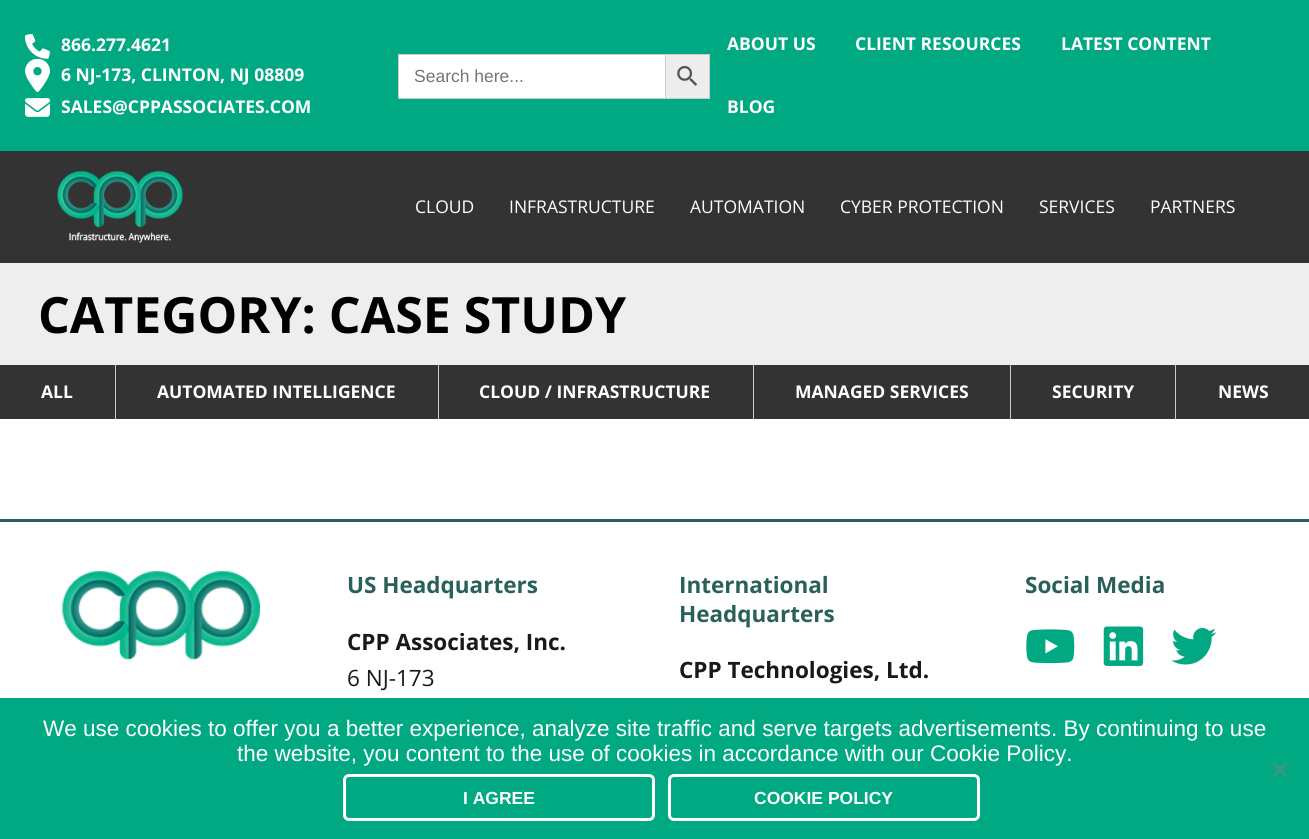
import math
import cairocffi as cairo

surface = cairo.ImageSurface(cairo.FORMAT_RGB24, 1309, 839)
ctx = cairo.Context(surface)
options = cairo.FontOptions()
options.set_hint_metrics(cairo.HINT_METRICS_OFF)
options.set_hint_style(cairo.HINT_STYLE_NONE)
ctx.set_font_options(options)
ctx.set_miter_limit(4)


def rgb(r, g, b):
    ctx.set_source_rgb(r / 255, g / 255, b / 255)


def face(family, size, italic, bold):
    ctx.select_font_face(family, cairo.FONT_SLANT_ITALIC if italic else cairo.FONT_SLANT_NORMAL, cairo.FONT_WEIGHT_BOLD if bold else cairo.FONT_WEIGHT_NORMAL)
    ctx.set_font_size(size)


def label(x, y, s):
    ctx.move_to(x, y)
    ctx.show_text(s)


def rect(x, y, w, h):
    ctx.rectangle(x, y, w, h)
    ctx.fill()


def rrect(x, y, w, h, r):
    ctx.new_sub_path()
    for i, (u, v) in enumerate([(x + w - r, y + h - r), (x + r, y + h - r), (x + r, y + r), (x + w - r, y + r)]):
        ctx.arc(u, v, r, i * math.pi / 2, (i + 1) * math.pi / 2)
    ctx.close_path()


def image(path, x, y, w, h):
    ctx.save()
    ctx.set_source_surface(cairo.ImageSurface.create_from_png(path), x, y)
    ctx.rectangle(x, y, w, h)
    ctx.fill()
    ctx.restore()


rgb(255, 255, 255)
ctx.paint()
rgb(1, 169, 130)
rect(0, 0, 1309, 151)
image('image0.png', 25, 34, 25, 25)
face('Open Sans', 17.5, 0, 1)
rgb(255, 255, 255)
label(61, 51, '866.277.4621')
image('image1.png', 25, 59, 25, 33)
label(61, 81, '6 NJ-173, CLINTON, NJ 08809')
image('image2.png', 25, 98, 25, 19)
label(61, 113, 'SALES@CPPASSOCIATES.COM')
rect(399, 55, 266, 43)
rgb(204, 204, 204)
rect(398, 54, 267, 1)
rect(398, 98, 267, 1)
rect(398, 54, 1, 45)
face('Liberation Sans', 17.5, 0, 0)
rgb(117, 117, 117)
label(414, 82, 'Search here...')
rgb(237, 237, 237)
ctx.rectangle(665.5, 54.5, 44, 44)
ctx.fill_preserve()
rgb(204, 204, 204)
ctx.set_line_width(1)
ctx.stroke()
image('image3.png', 677, 65, 21, 21)
face('Open Sans', 17.5, 0, 1)
rgb(255, 255, 255)
label(727, 50, 'ABOUT US')
label(855, 50, 'CLIENT RESOURCES')
label(1061, 50, 'LATEST CONTENT')
label(727, 113, 'BLOG')
rgb(51, 51, 51)
rect(0, 151, 1309, 112)
image('image4.png', 57, 171, 126, 72)
face('Open Sans', 17.5, 0, 0)
rgb(255, 255, 255)
label(415, 213, 'CLOUD')
label(509, 213, 'INFRASTRUCTURE')
label(690, 213, 'AUTOMATION')
label(840, 213, 'CYBER PROTECTION')
label(1039, 213, 'SERVICES')
label(1150, 213, 'PARTNERS')
rgb(238, 238, 238)
rect(0, 263, 1309, 102)
face('Open Sans', 50, 0, 1)
rgb(0, 0, 0)
label(38, 333, 'CATEGORY: CASE STUDY')
rgb(51, 51, 51)
rect(0, 365, 1309, 54)
face('Open Sans', 17.5, 0, 1)
rgb(255, 255, 255)
label(41, 398, 'ALL')
rgb(202, 202, 202)
rect(115, 365, 1, 54)
rgb(255, 255, 255)
label(157, 398, 'AUTOMATED INTELLIGENCE')
rgb(202, 202, 202)
rect(438, 365, 1, 54)
rgb(255, 255, 255)
label(479, 398, 'CLOUD / INFRASTRUCTURE')
rgb(202, 202, 202)
rect(753, 365, 1, 54)
rgb(255, 255, 255)
label(795, 398, 'MANAGED SERVICES')
rgb(202, 202, 202)
rect(1010, 365, 1, 54)
rgb(255, 255, 255)
label(1052, 398, 'SECURITY')
rgb(202, 202, 202)
rect(1175, 365, 1, 54)
rgb(255, 255, 255)
label(1218, 398, 'NEWS')
rgb(41, 97, 90)
rect(0, 519, 1309, 3)
image('image5.png', 62, 571, 198, 90)
face('Open Sans', 22.5, 0, 1)
label(347, 593, 'US Headquarters')
rgb(25, 25, 25)
label(347, 650, 'CPP Associates, Inc.')
face('Open Sans', 22.5, 0, 0)
label(347, 686, '6 NJ-173')
face('Open Sans', 22.5, 0, 1)
rgb(41, 97, 90)
label(679, 593, 'International')
label(679, 622, 'Headquarters')
rgb(25, 25, 25)
label(679, 678, 'CPP Technologies, Ltd.')
rgb(41, 97, 90)
label(1025, 593, 'Social Media')
image('image6.png', 1026, 629, 49, 35)
image('image7.png', 1103, 626, 41, 40)
image('image8.png', 1171, 628, 46, 37)
rgb(1, 169, 130)
rect(0, 698, 1309, 141)
face('Liberation Sans', 22.5, 0, 0)
rgb(255, 255, 255)
label(43, 736, 'We use cookies to offer you a better experience, analyze site traffic and serve targets advertisements. By continuing to use')
label(237, 761, 'the website, you content to the use of cookies in accordance with our Cookie Policy.')
rgb(65, 149, 129)
ctx.new_path()
ctx.move_to(1285.5, 762)
ctx.line_to(1287.5, 763.5)
ctx.line_to(1274.5, 777)
ctx.line_to(1272.5, 775)
ctx.close_path()
ctx.fill()
ctx.new_path()
ctx.move_to(1272.5, 763.5)
ctx.line_to(1274.5, 762)
ctx.line_to(1287.5, 775)
ctx.line_to(1285.5, 777)
ctx.close_path()
ctx.fill()
rrect(344.5, 775.5, 309, 44, 4.5)
rgb(255, 255, 255)
ctx.set_line_width(3)
ctx.stroke()
face('Liberation Sans', 17.5, 0, 1)
label(463, 804, 'I AGREE')
rrect(669.5, 775.5, 309, 44, 4.5)
ctx.stroke()
label(754, 804, 'COOKIE POLICY')
surface.write_to_png('render.png')
